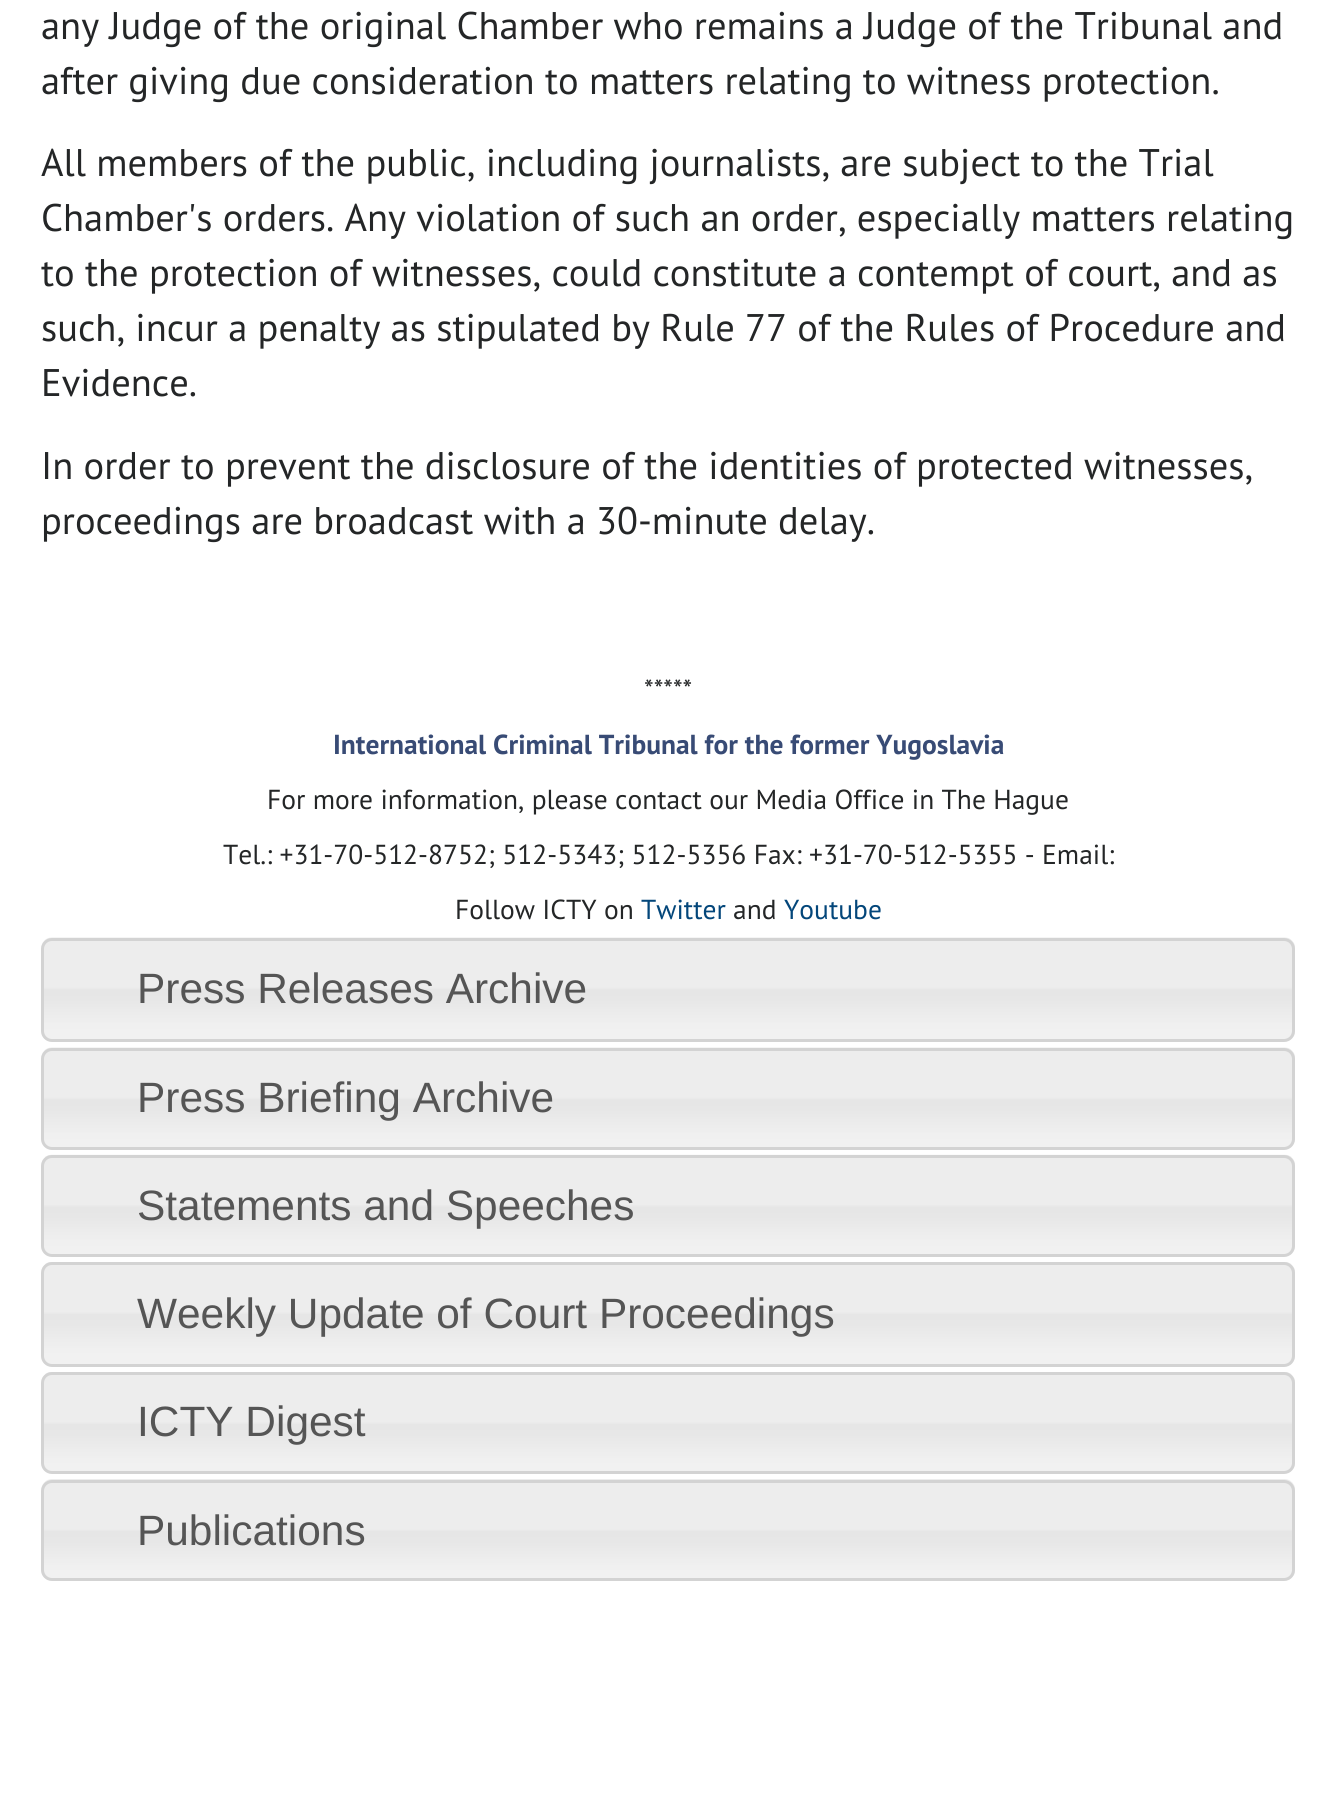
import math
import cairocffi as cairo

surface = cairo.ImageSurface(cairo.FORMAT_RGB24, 1335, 1802)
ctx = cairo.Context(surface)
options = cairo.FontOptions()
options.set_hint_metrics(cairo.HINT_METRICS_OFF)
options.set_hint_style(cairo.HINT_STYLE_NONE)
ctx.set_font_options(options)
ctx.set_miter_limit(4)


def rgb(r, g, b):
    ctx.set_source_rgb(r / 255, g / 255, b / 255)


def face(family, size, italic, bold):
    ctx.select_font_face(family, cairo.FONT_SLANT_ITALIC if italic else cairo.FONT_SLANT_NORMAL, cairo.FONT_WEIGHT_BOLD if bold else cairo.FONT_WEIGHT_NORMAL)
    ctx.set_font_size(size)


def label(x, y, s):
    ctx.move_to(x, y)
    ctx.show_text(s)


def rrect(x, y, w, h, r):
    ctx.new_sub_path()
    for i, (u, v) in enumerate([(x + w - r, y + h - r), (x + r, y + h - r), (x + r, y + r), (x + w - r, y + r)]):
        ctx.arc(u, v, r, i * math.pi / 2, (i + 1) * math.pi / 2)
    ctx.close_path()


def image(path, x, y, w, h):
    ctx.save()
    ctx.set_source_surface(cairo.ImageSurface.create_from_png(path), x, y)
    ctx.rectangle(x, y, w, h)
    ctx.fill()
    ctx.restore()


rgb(255, 255, 255)
ctx.paint()
face('PT Sans', 38.5, 0, 0)
rgb(36, 38, 39)
label(41, 39, 'any Judge of the original Chamber who remains a Judge of the Tribunal and')
label(41, 94, 'after giving due consideration to matters relating to witness protection.')
label(41, 176, 'All members of the public, including journalists, are subject to the Trial')
label(41, 231, 'Chamber\'s orders. Any violation of such an order, especially matters relating')
label(41, 286, 'to the protection of witnesses, could constitute a contempt of court, and as')
label(41, 341, 'such, incur a penalty as stipulated by Rule 77 of the Rules of Procedure and')
label(41, 396, 'Evidence.')
label(41, 479, 'In order to prevent the disclosure of the identities of protected witnesses,')
label(41, 534, 'proceedings are broadcast with a 30-minute delay.')
face('PT Sans', 27.5, 0, 0)
label(644, 699, '*****')
face('PT Sans', 27.5, 0, 1)
rgb(56, 75, 117)
label(333, 754, 'International Criminal Tribunal for the former Yugoslavia')
face('PT Sans', 27.5, 0, 0)
rgb(36, 38, 39)
label(267, 809, 'For more information, please contact our Media Office in The Hague')
label(223, 864, 'Tel.: +31-70-512-8752; 512-5343; 512-5356 Fax: +31-70-512-5355 - Email:')
label(455, 919, 'Follow ICTY on')
rgb(3, 70, 122)
label(641, 919, 'Twitter')
rgb(36, 38, 39)
label(733, 919, 'and')
rgb(3, 70, 122)
label(784, 919, 'Youtube')
image('image0.png', 41, 937, 1254, 105)
rrect(42.5, 939.5, 1251, 101, 9.5)
rgb(211, 211, 211)
ctx.set_line_width(3)
ctx.stroke()
face('Liberation Sans', 42.4, 0, 0)
rgb(85, 85, 85)
label(137, 1003, 'Press Releases Archive')
image('image1.png', 41, 1047, 1254, 102)
rrect(42.5, 1049.5, 1251, 99, 9.5)
rgb(211, 211, 211)
ctx.stroke()
rgb(85, 85, 85)
label(137, 1112, 'Press Briefing Archive')
image('image2.png', 41, 1154, 1254, 102)
rrect(42.5, 1156.5, 1251, 99, 9.5)
rgb(211, 211, 211)
ctx.stroke()
rgb(85, 85, 85)
label(137, 1220, 'Statements and Speeches')
image('image3.png', 41, 1262, 1254, 104)
rrect(42.5, 1263.5, 1251, 102, 9.5)
rgb(211, 211, 211)
ctx.stroke()
rgb(85, 85, 85)
label(137, 1328, 'Weekly Update of Court Proceedings')
image('image4.png', 41, 1372, 1254, 102)
rrect(42.5, 1373.5, 1251, 99, 9.5)
rgb(211, 211, 211)
ctx.stroke()
rgb(85, 85, 85)
label(137, 1436, 'ICTY Digest')
image('image5.png', 41, 1479, 1254, 102)
rrect(42.5, 1481.5, 1251, 98, 9.5)
rgb(211, 211, 211)
ctx.stroke()
rgb(85, 85, 85)
label(137, 1545, 'Publications')
surface.write_to_png('render.png')
